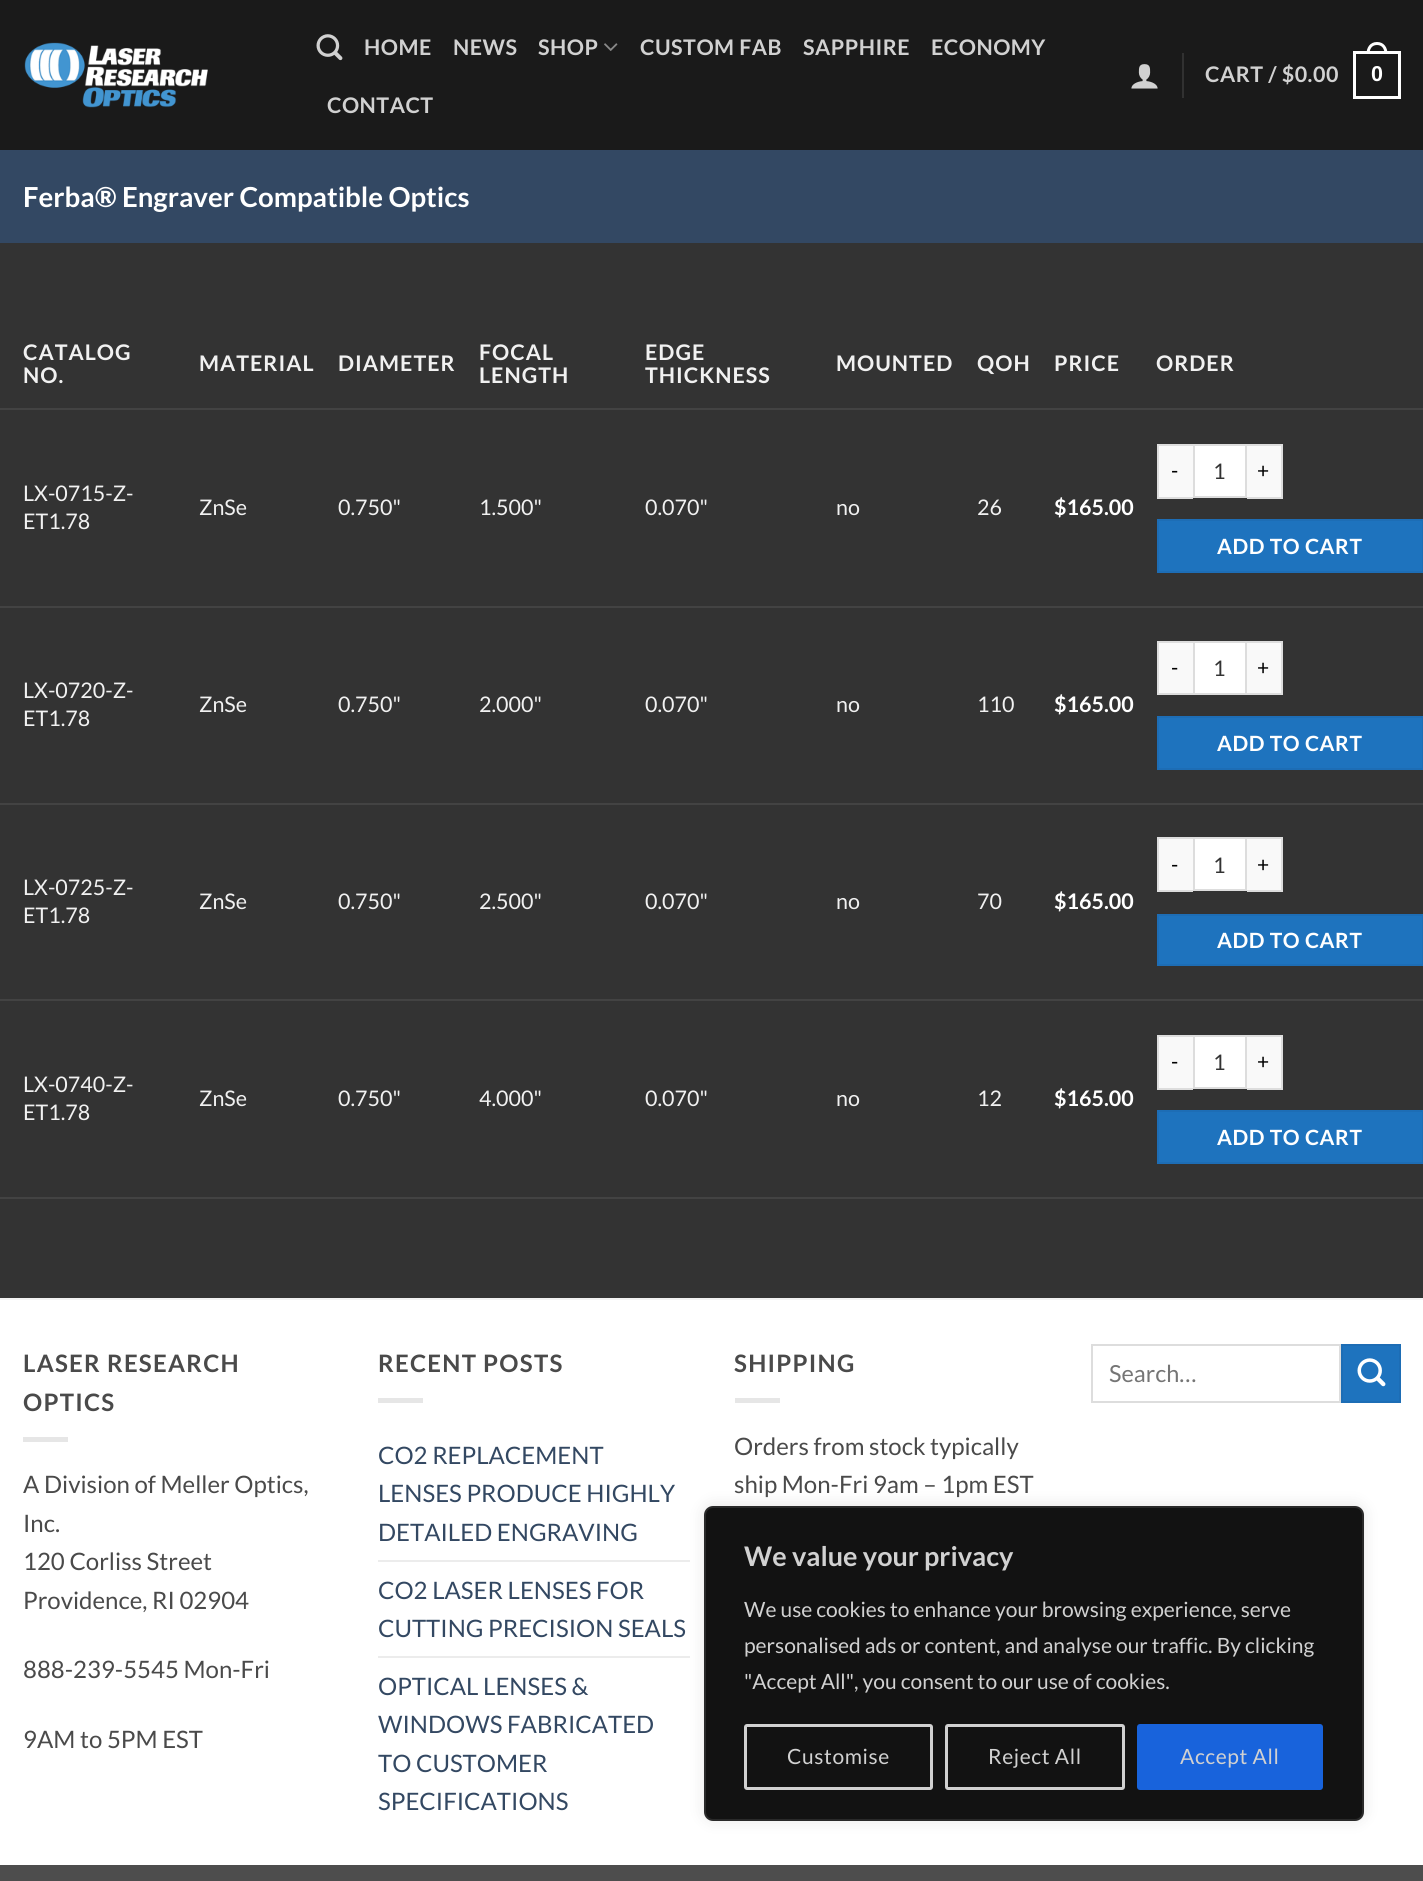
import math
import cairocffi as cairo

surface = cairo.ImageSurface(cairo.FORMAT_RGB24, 1423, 1881)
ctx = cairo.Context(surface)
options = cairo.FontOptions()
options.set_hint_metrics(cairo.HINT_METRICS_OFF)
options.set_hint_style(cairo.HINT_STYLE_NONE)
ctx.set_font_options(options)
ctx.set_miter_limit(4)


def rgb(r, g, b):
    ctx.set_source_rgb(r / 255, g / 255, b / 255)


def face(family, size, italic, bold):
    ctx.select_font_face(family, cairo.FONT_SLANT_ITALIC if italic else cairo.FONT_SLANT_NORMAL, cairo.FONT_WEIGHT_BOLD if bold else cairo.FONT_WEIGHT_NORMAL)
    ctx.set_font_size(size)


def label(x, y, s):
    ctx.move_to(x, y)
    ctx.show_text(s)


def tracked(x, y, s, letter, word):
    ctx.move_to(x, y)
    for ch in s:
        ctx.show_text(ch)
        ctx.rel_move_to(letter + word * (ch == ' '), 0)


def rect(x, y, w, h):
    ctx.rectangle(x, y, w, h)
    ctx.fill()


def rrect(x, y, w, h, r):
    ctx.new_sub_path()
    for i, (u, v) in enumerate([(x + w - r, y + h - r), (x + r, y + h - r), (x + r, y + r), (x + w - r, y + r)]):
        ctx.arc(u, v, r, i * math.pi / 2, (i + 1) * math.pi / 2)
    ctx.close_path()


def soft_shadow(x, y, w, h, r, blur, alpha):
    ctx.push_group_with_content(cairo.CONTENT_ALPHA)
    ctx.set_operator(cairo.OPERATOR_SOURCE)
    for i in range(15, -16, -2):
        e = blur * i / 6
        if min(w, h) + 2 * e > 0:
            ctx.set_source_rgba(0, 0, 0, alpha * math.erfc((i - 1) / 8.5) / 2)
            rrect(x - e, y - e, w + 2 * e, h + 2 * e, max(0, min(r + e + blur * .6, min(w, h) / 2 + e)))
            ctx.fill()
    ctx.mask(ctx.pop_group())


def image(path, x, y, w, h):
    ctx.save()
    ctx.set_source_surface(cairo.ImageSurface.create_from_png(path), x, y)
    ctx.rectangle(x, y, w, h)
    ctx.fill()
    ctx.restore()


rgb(255, 255, 255)
ctx.paint()
rgb(26, 26, 26)
rect(0, 0, 1423, 150)
image('image0.png', 24, 42, 184, 66)
image('image1.png', 316, 34, 27, 27)
face('Lato', 21.5, 0, 1)
rgb(209, 209, 209)
tracked(364, 55, 'HOME', 0.5, 0)
tracked(453, 55, 'NEWS', 0.5, 0)
tracked(538, 55, 'SHOP', 0.5, 0)
image('image2.png', 604, 43, 14, 8)
tracked(640, 55, 'CUSTOM FAB', 0.5, 0)
tracked(803, 55, 'SAPPHIRE', 0.5, 0)
tracked(931, 55, 'ECONOMY', 0.5, 0)
tracked(327, 113, 'CONTACT', 0.5, 0)
image('image3.png', 1131, 64, 27, 25)
rgb(49, 49, 49)
rect(1182, 53, 2, 45)
rgb(209, 209, 209)
tracked(1205, 82, 'CART / $0.00', 0.5, 0)
ctx.rectangle(1354.5, 52.5, 45, 45)
rgb(255, 255, 255)
ctx.set_line_width(3)
ctx.stroke()
ctx.set_fill_rule(cairo.FILL_RULE_EVEN_ODD)
ctx.new_path()
ctx.move_to(1377, 42)
ctx.curve_to(1384, 42, 1387.5, 47.5, 1387.5, 54)
ctx.line_to(1366.5, 54)
ctx.curve_to(1366.5, 47.5, 1370, 42, 1377, 42)
ctx.close_path()
ctx.move_to(1377, 45)
ctx.curve_to(1382.5, 45, 1384.5, 49.5, 1384.5, 54)
ctx.line_to(1369.5, 54)
ctx.curve_to(1369.5, 49.5, 1371.5, 45, 1377, 45)
ctx.close_path()
ctx.fill()
face('Liberation Sans', 21.5, 0, 1)
tracked(1371, 81, '0', 0.5, 0)
rgb(51, 72, 99)
rect(0, 150, 1423, 93)
face('Lato', 27.6, 0, 1)
rgb(255, 255, 255)
label(23, 207, 'Ferba® Engraver Compatible Optics')
rgb(51, 51, 51)
rect(0, 243, 1423, 1055)
rgb(67, 67, 67)
rect(0, 408, 1423, 2)
face('Lato', 21.5, 0, 1)
rgb(241, 241, 241)
tracked(23, 360, 'CATALOG', 1, 0)
tracked(23, 383, 'NO.', 1, 0)
tracked(199, 371, 'MATERIAL', 1, 0)
tracked(338, 371, 'DIAMETER', 1, 0)
tracked(479, 360, 'FOCAL', 1, 0)
tracked(479, 383, 'LENGTH', 1, 0)
tracked(645, 360, 'EDGE', 1, 0)
tracked(645, 383, 'THICKNESS', 1, 0)
tracked(836, 371, 'MOUNTED', 1, 0)
tracked(977, 371, 'QOH', 1, 0)
tracked(1054, 371, 'PRICE', 1, 0)
tracked(1156, 371, 'ORDER', 1, 0)
rgb(67, 67, 67)
rect(0, 606, 1423, 2)
face('Lato', 21.5, 0, 0)
rgb(241, 241, 241)
label(23, 501, 'LX-0715-Z-')
label(23, 529, 'ET1.78')
label(199, 515, 'ZnSe')
label(338, 515, '0.750"')
label(479, 515, '1.500"')
label(645, 515, '0.070"')
label(836, 515, 'no')
label(977, 515, '26')
face('Lato', 21.5, 0, 1)
rgb(255, 255, 255)
label(1054, 515, '$165.00')
rgb(249, 249, 249)
rect(1159, 446, 34, 51)
rgb(221, 221, 221)
rect(1157, 444, 36, 2)
rect(1157, 497, 36, 2)
rect(1157, 444, 2, 54)
face('Lato', 21, 0, 0)
rgb(0, 0, 0)
tracked(1171, 478, '-', 0.6, 0)
rgb(255, 255, 255)
ctx.rectangle(1194, 445, 52, 52)
ctx.fill_preserve()
rgb(221, 221, 221)
ctx.set_line_width(2)
ctx.stroke()
face('Lato', 21.5, 0, 0)
rgb(51, 51, 51)
label(1213, 479, '1')
rgb(249, 249, 249)
rect(1247, 446, 34, 51)
rgb(221, 221, 221)
rect(1247, 444, 36, 2)
rect(1281, 444, 2, 54)
rect(1247, 497, 36, 2)
face('Lato', 21, 0, 0)
rgb(0, 0, 0)
tracked(1257, 478, '+', 0.6, 0)
rgb(30, 115, 190)
ctx.rectangle(1158, 520, 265, 52)
ctx.fill_preserve()
rgb(29, 109, 181)
ctx.stroke()
face('Lato', 21, 0, 1)
rgb(255, 255, 255)
tracked(1217, 554, 'ADD TO CART', 0.6, 0)
rgb(67, 67, 67)
rect(0, 803, 1423, 2)
face('Lato', 21.5, 0, 0)
rgb(241, 241, 241)
label(23, 698, 'LX-0720-Z-')
label(23, 726, 'ET1.78')
label(199, 712, 'ZnSe')
label(338, 712, '0.750"')
label(479, 712, '2.000"')
label(645, 712, '0.070"')
label(836, 712, 'no')
label(977, 712, '110')
face('Lato', 21.5, 0, 1)
rgb(255, 255, 255)
label(1054, 712, '$165.00')
rgb(249, 249, 249)
rect(1159, 643, 34, 50)
rgb(221, 221, 221)
rect(1157, 641, 36, 2)
rect(1157, 693, 36, 2)
rect(1157, 641, 2, 54)
face('Lato', 21, 0, 0)
rgb(0, 0, 0)
tracked(1171, 675, '-', 0.6, 0)
rgb(255, 255, 255)
ctx.rectangle(1194, 642, 52, 52)
ctx.fill_preserve()
rgb(221, 221, 221)
ctx.stroke()
face('Lato', 21.5, 0, 0)
rgb(51, 51, 51)
label(1213, 676, '1')
rgb(249, 249, 249)
rect(1247, 643, 34, 50)
rgb(221, 221, 221)
rect(1247, 641, 36, 2)
rect(1281, 641, 2, 54)
rect(1247, 693, 36, 2)
face('Lato', 21, 0, 0)
rgb(0, 0, 0)
tracked(1257, 675, '+', 0.6, 0)
rgb(30, 115, 190)
ctx.rectangle(1158, 717, 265, 52)
ctx.fill_preserve()
rgb(29, 109, 181)
ctx.stroke()
face('Lato', 21, 0, 1)
rgb(255, 255, 255)
tracked(1217, 751, 'ADD TO CART', 0.6, 0)
rgb(67, 67, 67)
rect(0, 999, 1423, 2)
face('Lato', 21.5, 0, 0)
rgb(241, 241, 241)
label(23, 895, 'LX-0725-Z-')
label(23, 923, 'ET1.78')
label(199, 909, 'ZnSe')
label(338, 909, '0.750"')
label(479, 909, '2.500"')
label(645, 909, '0.070"')
label(836, 909, 'no')
label(977, 909, '70')
face('Lato', 21.5, 0, 1)
rgb(255, 255, 255)
label(1054, 909, '$165.00')
rgb(249, 249, 249)
rect(1159, 839, 34, 51)
rgb(221, 221, 221)
rect(1157, 837, 36, 2)
rect(1157, 890, 36, 2)
rect(1157, 837, 2, 54)
face('Lato', 21, 0, 0)
rgb(0, 0, 0)
tracked(1171, 872, '-', 0.6, 0)
rgb(255, 255, 255)
ctx.rectangle(1194, 838, 52, 52)
ctx.fill_preserve()
rgb(221, 221, 221)
ctx.stroke()
face('Lato', 21.5, 0, 0)
rgb(51, 51, 51)
label(1213, 873, '1')
rgb(249, 249, 249)
rect(1247, 839, 34, 51)
rgb(221, 221, 221)
rect(1247, 837, 36, 2)
rect(1281, 837, 2, 54)
rect(1247, 890, 36, 2)
face('Lato', 21, 0, 0)
rgb(0, 0, 0)
tracked(1257, 872, '+', 0.6, 0)
rgb(30, 115, 190)
ctx.rectangle(1158, 915, 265, 50)
ctx.fill_preserve()
rgb(29, 109, 181)
ctx.stroke()
face('Lato', 21, 0, 1)
rgb(255, 255, 255)
tracked(1217, 948, 'ADD TO CART', 0.6, 0)
rgb(67, 67, 67)
rect(0, 1197, 1423, 2)
face('Lato', 21.5, 0, 0)
rgb(241, 241, 241)
label(23, 1092, 'LX-0740-Z-')
label(23, 1120, 'ET1.78')
label(199, 1106, 'ZnSe')
label(338, 1106, '0.750"')
label(479, 1106, '4.000"')
label(645, 1106, '0.070"')
label(836, 1106, 'no')
label(977, 1106, '12')
face('Lato', 21.5, 0, 1)
rgb(255, 255, 255)
label(1054, 1106, '$165.00')
rgb(249, 249, 249)
rect(1159, 1037, 34, 51)
rgb(221, 221, 221)
rect(1157, 1035, 36, 2)
rect(1157, 1088, 36, 2)
rect(1157, 1035, 2, 54)
face('Lato', 21, 0, 0)
rgb(0, 0, 0)
tracked(1171, 1069, '-', 0.6, 0)
rgb(255, 255, 255)
ctx.rectangle(1194, 1036, 52, 52)
ctx.fill_preserve()
rgb(221, 221, 221)
ctx.stroke()
face('Lato', 21.5, 0, 0)
rgb(51, 51, 51)
label(1213, 1070, '1')
rgb(249, 249, 249)
rect(1247, 1037, 34, 51)
rgb(221, 221, 221)
rect(1247, 1035, 36, 2)
rect(1281, 1035, 2, 54)
rect(1247, 1088, 36, 2)
face('Lato', 21, 0, 0)
rgb(0, 0, 0)
tracked(1257, 1069, '+', 0.6, 0)
rgb(30, 115, 190)
ctx.rectangle(1158, 1111, 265, 52)
ctx.fill_preserve()
rgb(29, 109, 181)
ctx.stroke()
face('Lato', 21, 0, 1)
rgb(255, 255, 255)
tracked(1217, 1145, 'ADD TO CART', 0.6, 0)
rgb(242, 242, 242)
rect(0, 1298, 1423, 2)
face('Lato', 24, 0, 1)
rgb(74, 74, 74)
tracked(23, 1372, 'LASER RESEARCH', 1.25, 0)
tracked(23, 1411, 'OPTICS', 1.25, 0)
rgb(230, 230, 230)
rect(23, 1437, 45, 5)
face('Lato', 24, 0, 0)
rgb(74, 74, 74)
label(23, 1493, 'A Division of Meller Optics,')
label(23, 1532, 'Inc.')
label(23, 1570, '120 Corliss Street')
label(23, 1609, 'Providence, RI 02904')
label(23, 1678, '888-239-5545 Mon-Fri')
label(23, 1748, '9AM to 5PM EST')
face('Lato', 24, 0, 1)
tracked(378, 1372, 'RECENT POSTS', 1.25, 0)
rgb(230, 230, 230)
rect(378, 1398, 45, 5)
face('Lato', 24, 0, 0)
rgb(51, 72, 98)
label(378, 1464, 'CO2 REPLACEMENT')
label(378, 1502, 'LENSES PRODUCE HIGHLY')
label(378, 1541, 'DETAILED ENGRAVING')
rgb(236, 236, 236)
rect(378, 1560, 312, 2)
rgb(51, 72, 98)
label(378, 1599, 'CO2 LASER LENSES FOR')
label(378, 1637, 'CUTTING PRECISION SEALS')
rgb(236, 236, 236)
rect(378, 1656, 312, 2)
rgb(51, 72, 98)
label(378, 1695, 'OPTICAL LENSES &')
label(378, 1733, 'WINDOWS FABRICATED')
label(378, 1772, 'TO CUSTOMER')
label(378, 1810, 'SPECIFICATIONS')
face('Lato', 24, 0, 1)
rgb(74, 74, 74)
tracked(734, 1372, 'SHIPPING', 1.25, 0)
rgb(230, 230, 230)
rect(735, 1398, 45, 5)
face('Lato', 24, 0, 0)
rgb(74, 74, 74)
label(734, 1455, 'Orders from stock typically')
label(734, 1493, 'ship Mon-Fri 9am – 1pm EST')
ctx.rectangle(1092, 1345, 248, 57)
rgb(221, 221, 221)
ctx.stroke()
face('Lato', 23.5, 0, 0)
rgb(117, 117, 117)
label(1109, 1382, 'Search…')
rgb(30, 115, 190)
ctx.rectangle(1342, 1345, 58, 57)
ctx.fill_preserve()
rgb(29, 109, 181)
ctx.stroke()
image('image4.png', 1357, 1358, 29, 29)
rgb(77, 77, 77)
rect(0, 1865, 1423, 16)
rgb(172, 171, 171)
soft_shadow(704, 1505, 660, 315, 9, 7.5, 0.3)
rgb(18, 18, 18)
rrect(705, 1507, 658, 313, 8)
ctx.fill_preserve()
rgb(42, 42, 42)
ctx.stroke()
face('Lato', 27, 0, 1)
rgb(209, 209, 209)
label(744, 1566, 'We value your privacy')
face('Lato', 21, 0, 0)
label(744, 1617, 'We use cookies to enhance your browsing experience, serve')
label(744, 1653, 'personalised ads or content, and analyse our traffic. By clicking')
label(744, 1689, '"Accept All", you consent to our use of cookies.')
rrect(745.5, 1725.5, 186, 63, 1.5)
rgb(208, 208, 208)
ctx.set_line_width(3)
ctx.stroke()
rgb(209, 209, 209)
tracked(787, 1764, 'Customise', 0.6, 0)
rrect(946.5, 1725.5, 177, 63, 1.5)
rgb(208, 208, 208)
ctx.stroke()
rgb(209, 209, 209)
tracked(988, 1764, 'Reject All', 0.6, 0)
rgb(24, 99, 220)
rrect(1138.5, 1725.5, 183, 63, 1.5)
ctx.fill_preserve()
ctx.stroke()
rgb(209, 209, 209)
tracked(1180, 1764, 'Accept All', 0.6, 0)
surface.write_to_png('render.png')
